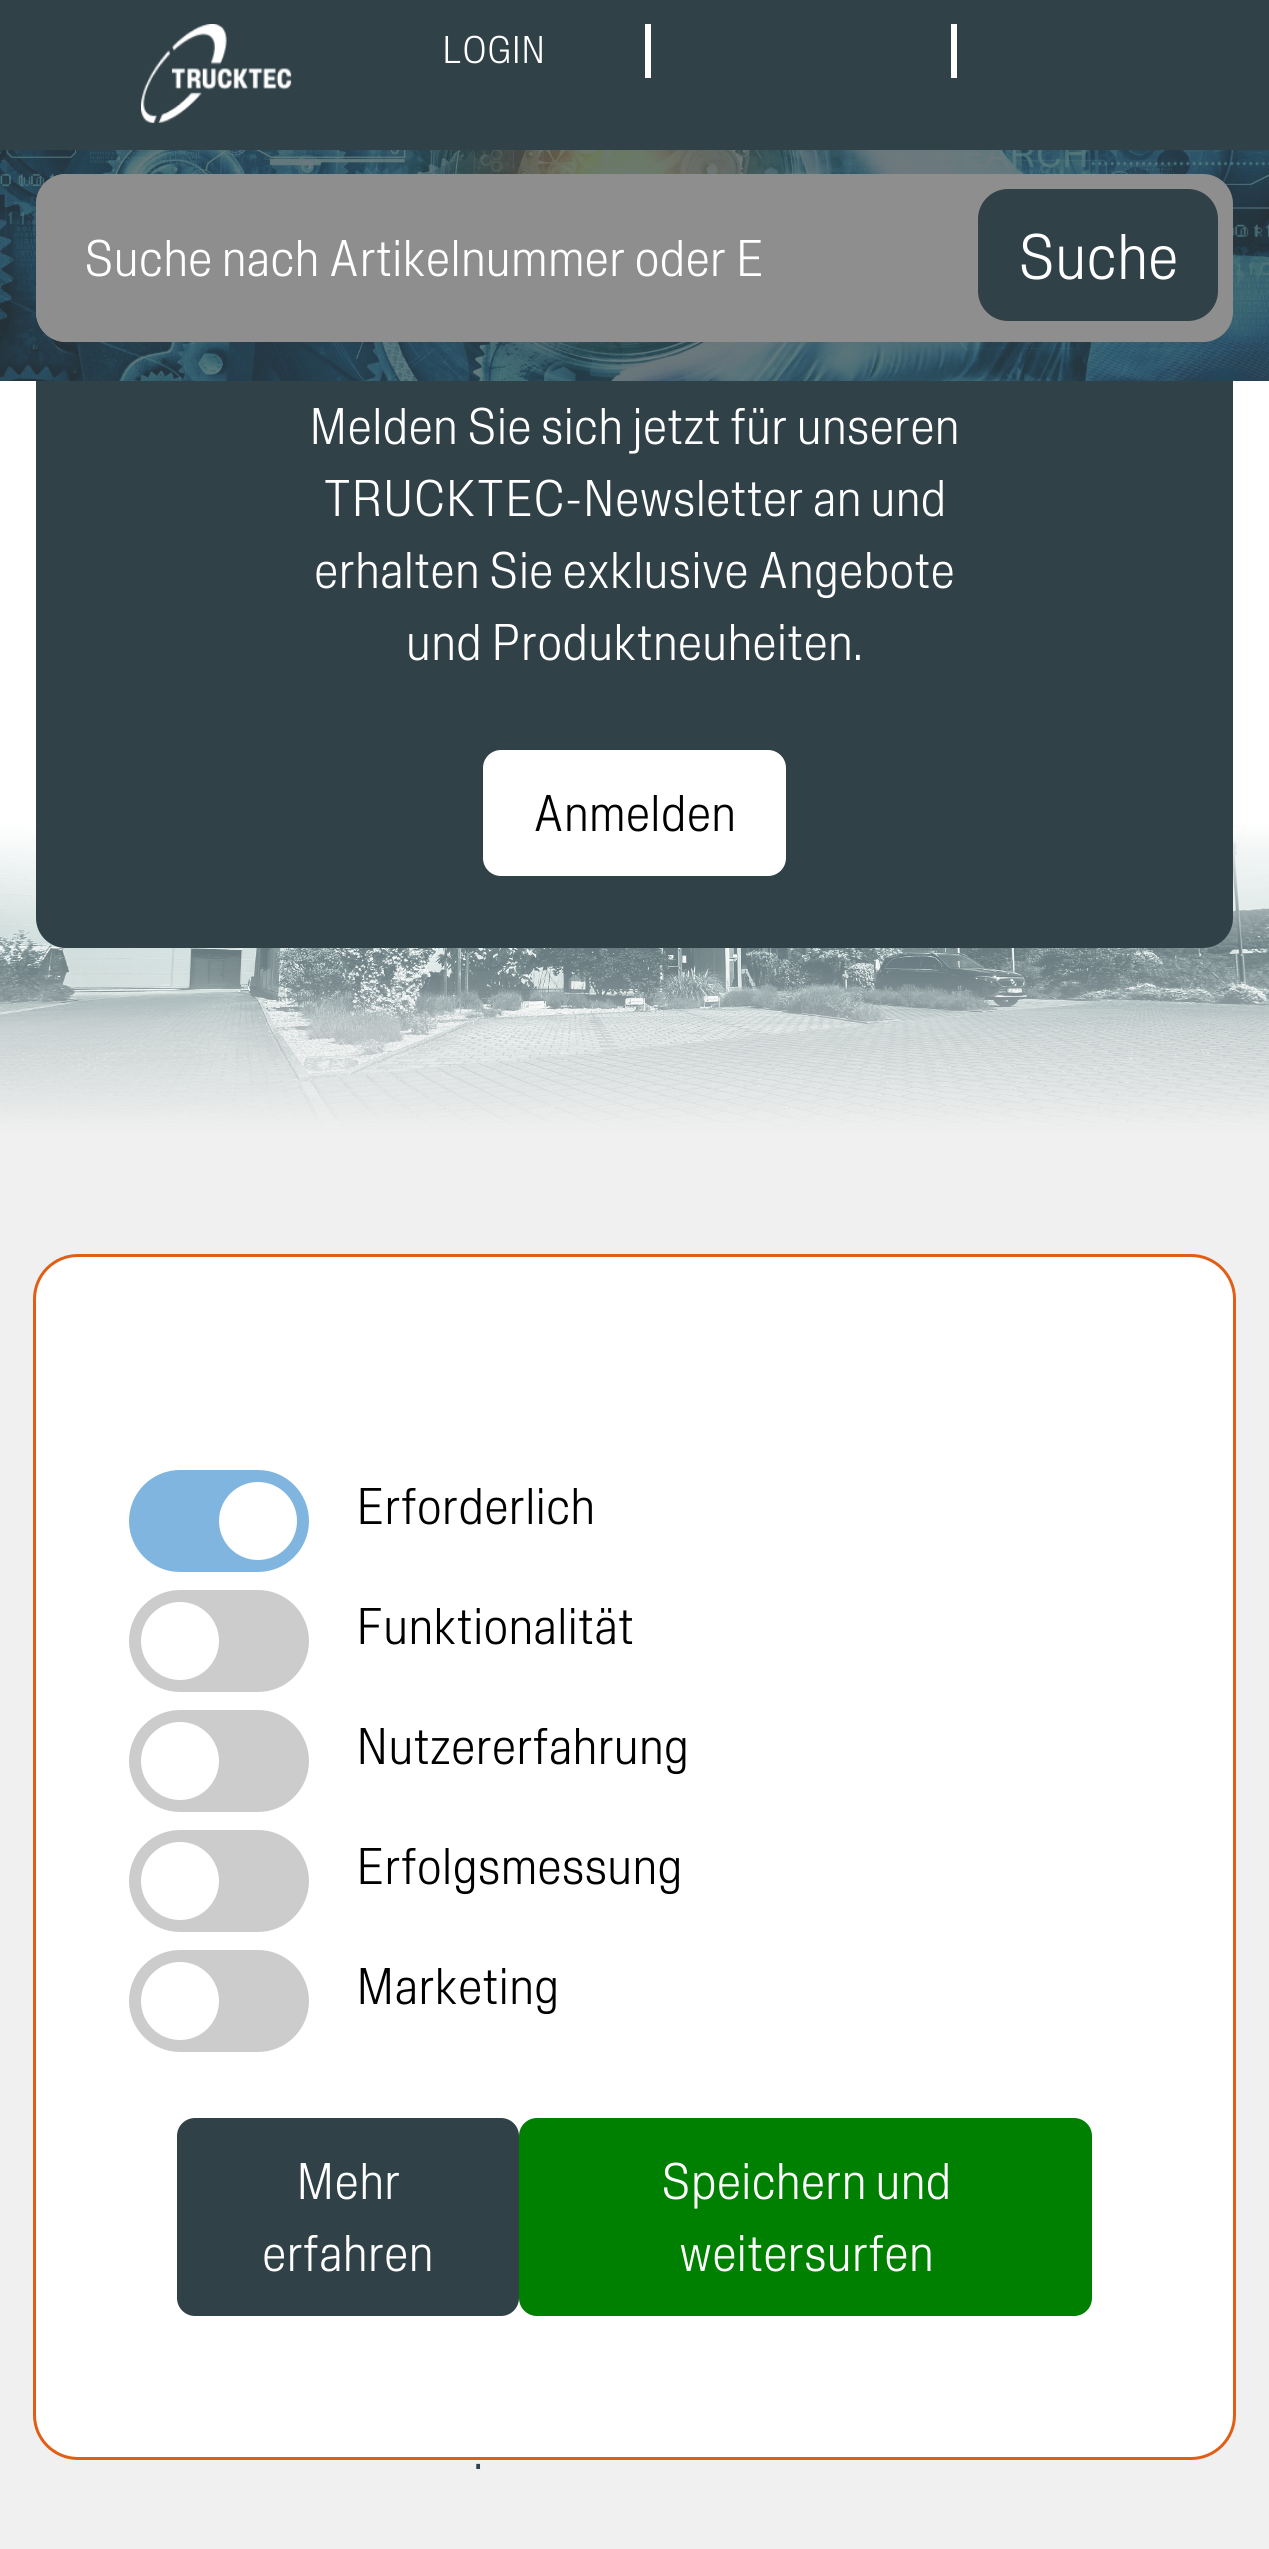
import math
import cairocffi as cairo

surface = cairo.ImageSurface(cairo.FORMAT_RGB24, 1269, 2549)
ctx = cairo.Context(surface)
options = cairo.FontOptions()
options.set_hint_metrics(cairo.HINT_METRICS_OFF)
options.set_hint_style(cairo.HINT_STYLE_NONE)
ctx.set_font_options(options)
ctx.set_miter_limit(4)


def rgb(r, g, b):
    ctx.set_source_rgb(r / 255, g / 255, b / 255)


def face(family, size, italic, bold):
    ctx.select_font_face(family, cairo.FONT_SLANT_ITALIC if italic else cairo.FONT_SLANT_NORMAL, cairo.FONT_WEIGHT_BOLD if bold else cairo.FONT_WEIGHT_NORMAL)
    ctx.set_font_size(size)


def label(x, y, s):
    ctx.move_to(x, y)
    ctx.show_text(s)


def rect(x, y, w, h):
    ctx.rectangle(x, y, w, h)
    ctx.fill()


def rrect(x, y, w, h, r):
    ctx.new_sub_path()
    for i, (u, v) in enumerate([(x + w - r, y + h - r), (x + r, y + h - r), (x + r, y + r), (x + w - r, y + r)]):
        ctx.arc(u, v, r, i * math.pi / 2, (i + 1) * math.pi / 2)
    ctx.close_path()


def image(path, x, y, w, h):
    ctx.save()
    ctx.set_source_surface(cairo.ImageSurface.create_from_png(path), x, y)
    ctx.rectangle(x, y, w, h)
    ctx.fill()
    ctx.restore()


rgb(255, 255, 255)
ctx.paint()
image('image2.png', 0, 756, 1269, 376)
rgb(49, 65, 72)
rrect(36, -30, 1197, 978, 30)
ctx.fill()
image('image0.png', 0, 150, 1269, 231)
rect(0, 0, 1269, 150)
image('image1.png', 141, 24, 151, 99)
face('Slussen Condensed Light', 36, 0, 0)
rgb(255, 255, 255)
label(442, 63, 'LOGIN')
rect(645, 24, 6, 54)
rect(951, 24, 6, 54)
rgb(142, 142, 142)
rrect(36, 174, 1197, 168, 30)
ctx.fill()
rrect(37.5, 175.5, 771, 165, 28.5)
ctx.set_line_width(3)
ctx.stroke()
face('Slussen Condensed Light', 48, 0, 0)
rgb(255, 255, 255)
label(84, 276, 'Suche nach Artikelnummer oder E')
rgb(49, 65, 72)
rrect(978, 189, 240, 132, 30)
ctx.fill()
face('Slussen Condensed Light', 60, 0, 0)
rgb(255, 255, 255)
label(1018, 279, 'Suche')
face('Slussen Condensed Light', 48, 0, 0)
label(309, 444, 'Melden Sie sich jetzt für unseren')
label(323, 516, 'TRUCKTEC-Newsletter an und')
label(314, 588, 'erhalten Sie exklusive Angebote')
label(406, 660, 'und Produktneuheiten.')
rrect(483, 750, 303, 126, 18)
ctx.fill()
rgb(0, 0, 0)
label(533, 831, 'Anmelden')
gradient = cairo.LinearGradient(635, 1200, 635, 945)
gradient.add_color_stop_rgba(0.26, 0.941, 0.941, 0.941, 1)
gradient.add_color_stop_rgba(0.68, 0.949, 0.949, 0.949, 0.68)
gradient.add_color_stop_rgba(1, 0.949, 0.949, 0.949, 0)
ctx.set_source(gradient)
rect(0, 948, 1269, 252)
rgb(240, 240, 240)
rect(0, 1200, 1269, 1349)
rgb(49, 65, 72)
label(473, 2469, '.')
rgb(255, 255, 255)
rrect(34.5, 1255.5, 1200, 1203, 43.5)
ctx.fill_preserve()
rgb(225, 94, 22)
ctx.stroke()
rgb(128, 181, 224)
rrect(129, 1470, 180, 102, 51)
ctx.fill()
rgb(255, 255, 255)
ctx.arc(258, 1521, 39, 0, 2 * math.pi)
ctx.fill()
rgb(0, 0, 0)
label(356, 1524, 'Erforderlich')
rgb(204, 204, 204)
rrect(129, 1590, 180, 102, 51)
ctx.fill()
rgb(255, 255, 255)
ctx.arc(180, 1641, 39, 0, 2 * math.pi)
ctx.fill()
rgb(0, 0, 0)
label(356, 1644, 'Funktionalität')
rgb(204, 204, 204)
rrect(129, 1710, 180, 102, 51)
ctx.fill()
rgb(255, 255, 255)
ctx.arc(180, 1761, 39, 0, 2 * math.pi)
ctx.fill()
rgb(0, 0, 0)
label(356, 1764, 'Nutzererfahrung')
rgb(204, 204, 204)
rrect(129, 1830, 180, 102, 51)
ctx.fill()
rgb(255, 255, 255)
ctx.arc(180, 1881, 39, 0, 2 * math.pi)
ctx.fill()
rgb(0, 0, 0)
label(356, 1884, 'Erfolgsmessung')
rgb(204, 204, 204)
rrect(129, 1950, 180, 102, 51)
ctx.fill()
rgb(255, 255, 255)
ctx.arc(180, 2001, 39, 0, 2 * math.pi)
ctx.fill()
rgb(0, 0, 0)
label(356, 2004, 'Marketing')
rgb(49, 65, 72)
rrect(177, 2118, 342, 198, 18)
ctx.fill()
rgb(255, 255, 255)
label(296, 2199, 'Mehr')
label(262, 2271, 'erfahren')
rgb(0, 128, 0)
rrect(519, 2118, 573, 198, 18)
ctx.fill()
rgb(255, 255, 255)
label(661, 2199, 'Speichern und')
label(679, 2271, 'weitersurfen')
surface.write_to_png('render.png')
